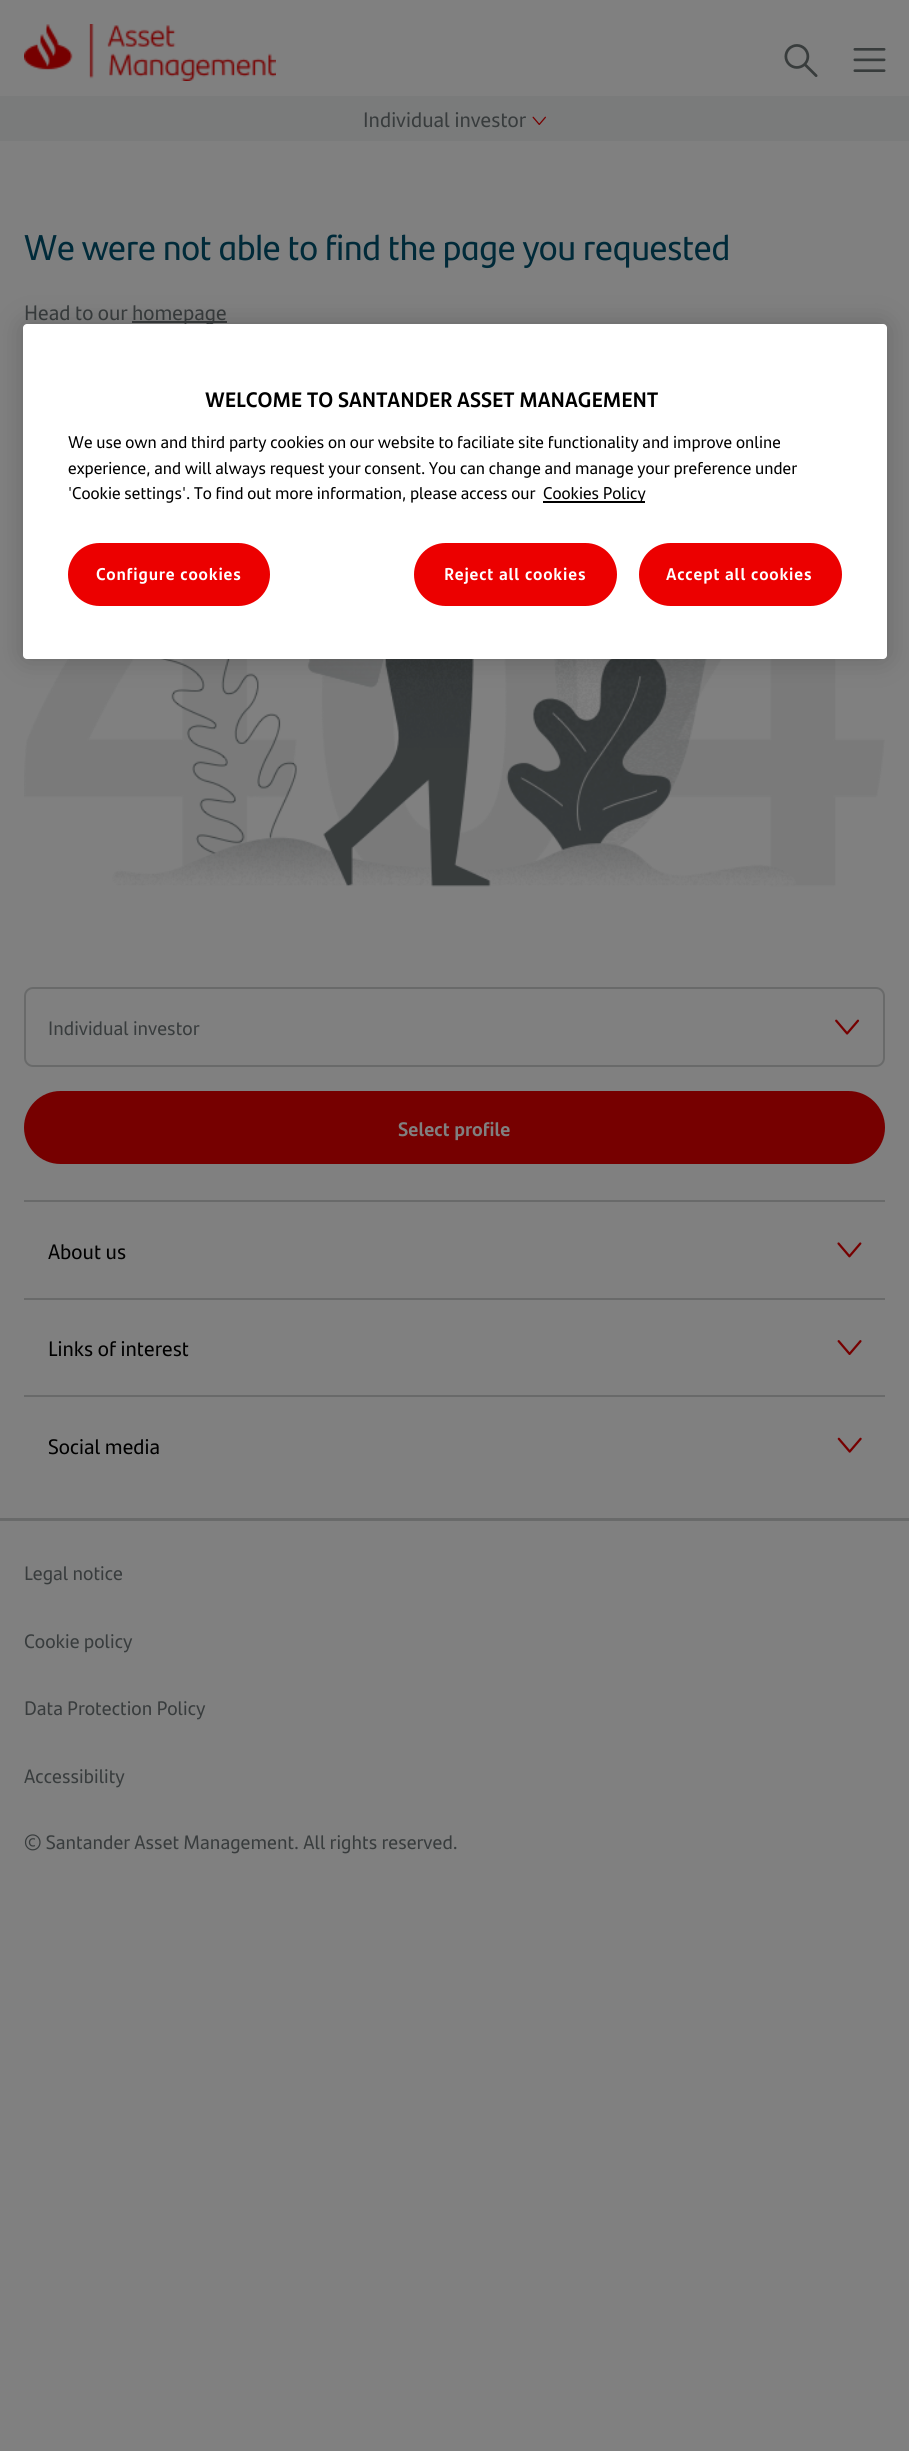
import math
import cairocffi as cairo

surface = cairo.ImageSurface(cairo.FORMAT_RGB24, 909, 2451)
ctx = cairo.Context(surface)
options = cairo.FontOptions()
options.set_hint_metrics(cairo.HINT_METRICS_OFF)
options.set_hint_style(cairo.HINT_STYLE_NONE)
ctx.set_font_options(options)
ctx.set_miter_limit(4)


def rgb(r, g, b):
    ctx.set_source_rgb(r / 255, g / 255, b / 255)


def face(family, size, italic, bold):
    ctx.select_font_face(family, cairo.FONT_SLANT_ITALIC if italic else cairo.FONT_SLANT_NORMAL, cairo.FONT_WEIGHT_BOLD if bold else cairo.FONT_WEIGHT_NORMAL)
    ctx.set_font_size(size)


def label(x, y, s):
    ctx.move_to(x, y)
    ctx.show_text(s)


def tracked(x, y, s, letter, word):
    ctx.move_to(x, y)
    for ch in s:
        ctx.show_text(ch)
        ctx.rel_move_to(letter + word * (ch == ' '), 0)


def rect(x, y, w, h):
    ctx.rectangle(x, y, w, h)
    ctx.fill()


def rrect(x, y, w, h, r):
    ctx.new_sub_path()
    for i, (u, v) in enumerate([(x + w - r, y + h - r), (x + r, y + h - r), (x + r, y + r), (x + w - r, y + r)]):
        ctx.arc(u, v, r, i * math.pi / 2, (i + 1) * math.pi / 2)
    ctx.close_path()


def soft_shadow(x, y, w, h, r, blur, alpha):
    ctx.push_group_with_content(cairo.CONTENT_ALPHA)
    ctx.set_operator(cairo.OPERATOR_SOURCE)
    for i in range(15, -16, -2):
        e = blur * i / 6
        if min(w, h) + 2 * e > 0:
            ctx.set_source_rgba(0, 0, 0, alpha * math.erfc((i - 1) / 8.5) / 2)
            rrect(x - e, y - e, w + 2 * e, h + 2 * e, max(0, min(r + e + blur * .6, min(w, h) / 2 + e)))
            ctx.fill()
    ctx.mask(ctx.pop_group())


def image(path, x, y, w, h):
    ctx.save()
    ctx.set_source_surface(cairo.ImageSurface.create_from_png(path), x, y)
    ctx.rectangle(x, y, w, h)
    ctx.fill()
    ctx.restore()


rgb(128, 128, 128)
ctx.paint()
image('image0.png', 24, 24, 252, 57)
image('image1.png', 784, 44, 34, 33)
image('image2.png', 853, 48, 33, 24)
rgb(122, 123, 123)
rect(0, 96, 909, 45)
face('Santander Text', 21, 0, 0)
rgb(56, 60, 61)
label(363, 127, 'Individual investor')
image('image3.png', 532, 116, 14, 9)
face('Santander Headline', 36, 0, 0)
rgb(0, 42, 57)
label(24, 260, 'We were not able to find the page you requested')
face('Santander Text', 21, 0, 0)
rgb(56, 60, 61)
label(24, 320, 'Head to our')
rect(132, 321, 95, 2)
label(132, 320, 'homepage')
image('image4.png', 24, 659, 861, 228)
rgb(0, 0, 0)
soft_shadow(23, 324, 864, 335, 4, 13.5, 0.2)
rgb(255, 255, 255)
rrect(23, 324, 864, 335, 4)
ctx.fill()
face('Santander Text', 21, 0, 1)
rgb(0, 0, 0)
label(205, 407, 'WELCOME TO SANTANDER ASSET MANAGEMENT')
face('Santander Text', 17.05, 0, 0)
label(68, 448, 'We use own and third party cookies on our website to faciliate site functionality and improve online')
label(68, 474, 'experience, and will always request your consent. You can change and manage your preference under')
label(68, 499, '\'Cookie settings\'. To find out more information, please access our')
rect(543, 501, 102, 2)
label(543, 499, 'Cookies Policy')
rgb(236, 0, 0)
rrect(69, 544, 200, 61, 30.5)
ctx.fill_preserve()
ctx.stroke()
face('Santander Text', 17.05, 0, 1)
rgb(255, 255, 255)
tracked(96, 580, 'Configure cookies', 0.8, 0)
rgb(236, 0, 0)
rrect(415, 544, 201, 61, 30.5)
ctx.fill_preserve()
ctx.stroke()
rgb(255, 255, 255)
tracked(444, 580, 'Reject all cookies', 0.8, 0)
rgb(236, 0, 0)
rrect(640, 544, 201, 61, 30.5)
ctx.fill_preserve()
ctx.stroke()
rgb(255, 255, 255)
tracked(666, 580, 'Accept all cookies', 0.8, 0)
rrect(25, 988, 859, 78, 8)
rgb(105, 106, 106)
ctx.stroke()
image('image5.png', 835, 1019, 25, 16)
face('Santander Text', 19.5, 0, 0)
rgb(56, 60, 61)
label(48, 1035, 'Individual investor')
rgb(118, 0, 0)
rrect(24, 1091, 861, 73, 36.5)
ctx.fill()
face('Santander Text', 19.5, 0, 1)
rgb(128, 128, 128)
label(398, 1136, 'Select profile')
rgb(105, 106, 106)
rect(24, 1200, 861, 2)
face('Santander Text', 21, 0, 0)
rgb(0, 0, 0)
label(48, 1259, 'About us')
image('image6.png', 837, 1242, 25, 16)
rgb(105, 106, 106)
rect(24, 1298, 861, 2)
rgb(0, 0, 0)
label(48, 1356, 'Links of interest')
image('image7.png', 837, 1340, 25, 15)
rgb(105, 106, 106)
rect(24, 1395, 861, 2)
rgb(0, 0, 0)
label(48, 1454, 'Social media')
image('image8.png', 837, 1437, 25, 16)
rgb(105, 106, 106)
rect(0, 1518, 909, 3)
face('Santander Text', 19.5, 0, 0)
rgb(56, 60, 61)
label(24, 1580, 'Legal notice')
label(24, 1648, 'Cookie policy')
label(24, 1715, 'Data Protection Policy')
label(24, 1783, 'Accessibility')
label(24, 1849, '© Santander Asset Management. All rights reserved.')
surface.write_to_png('render.png')
